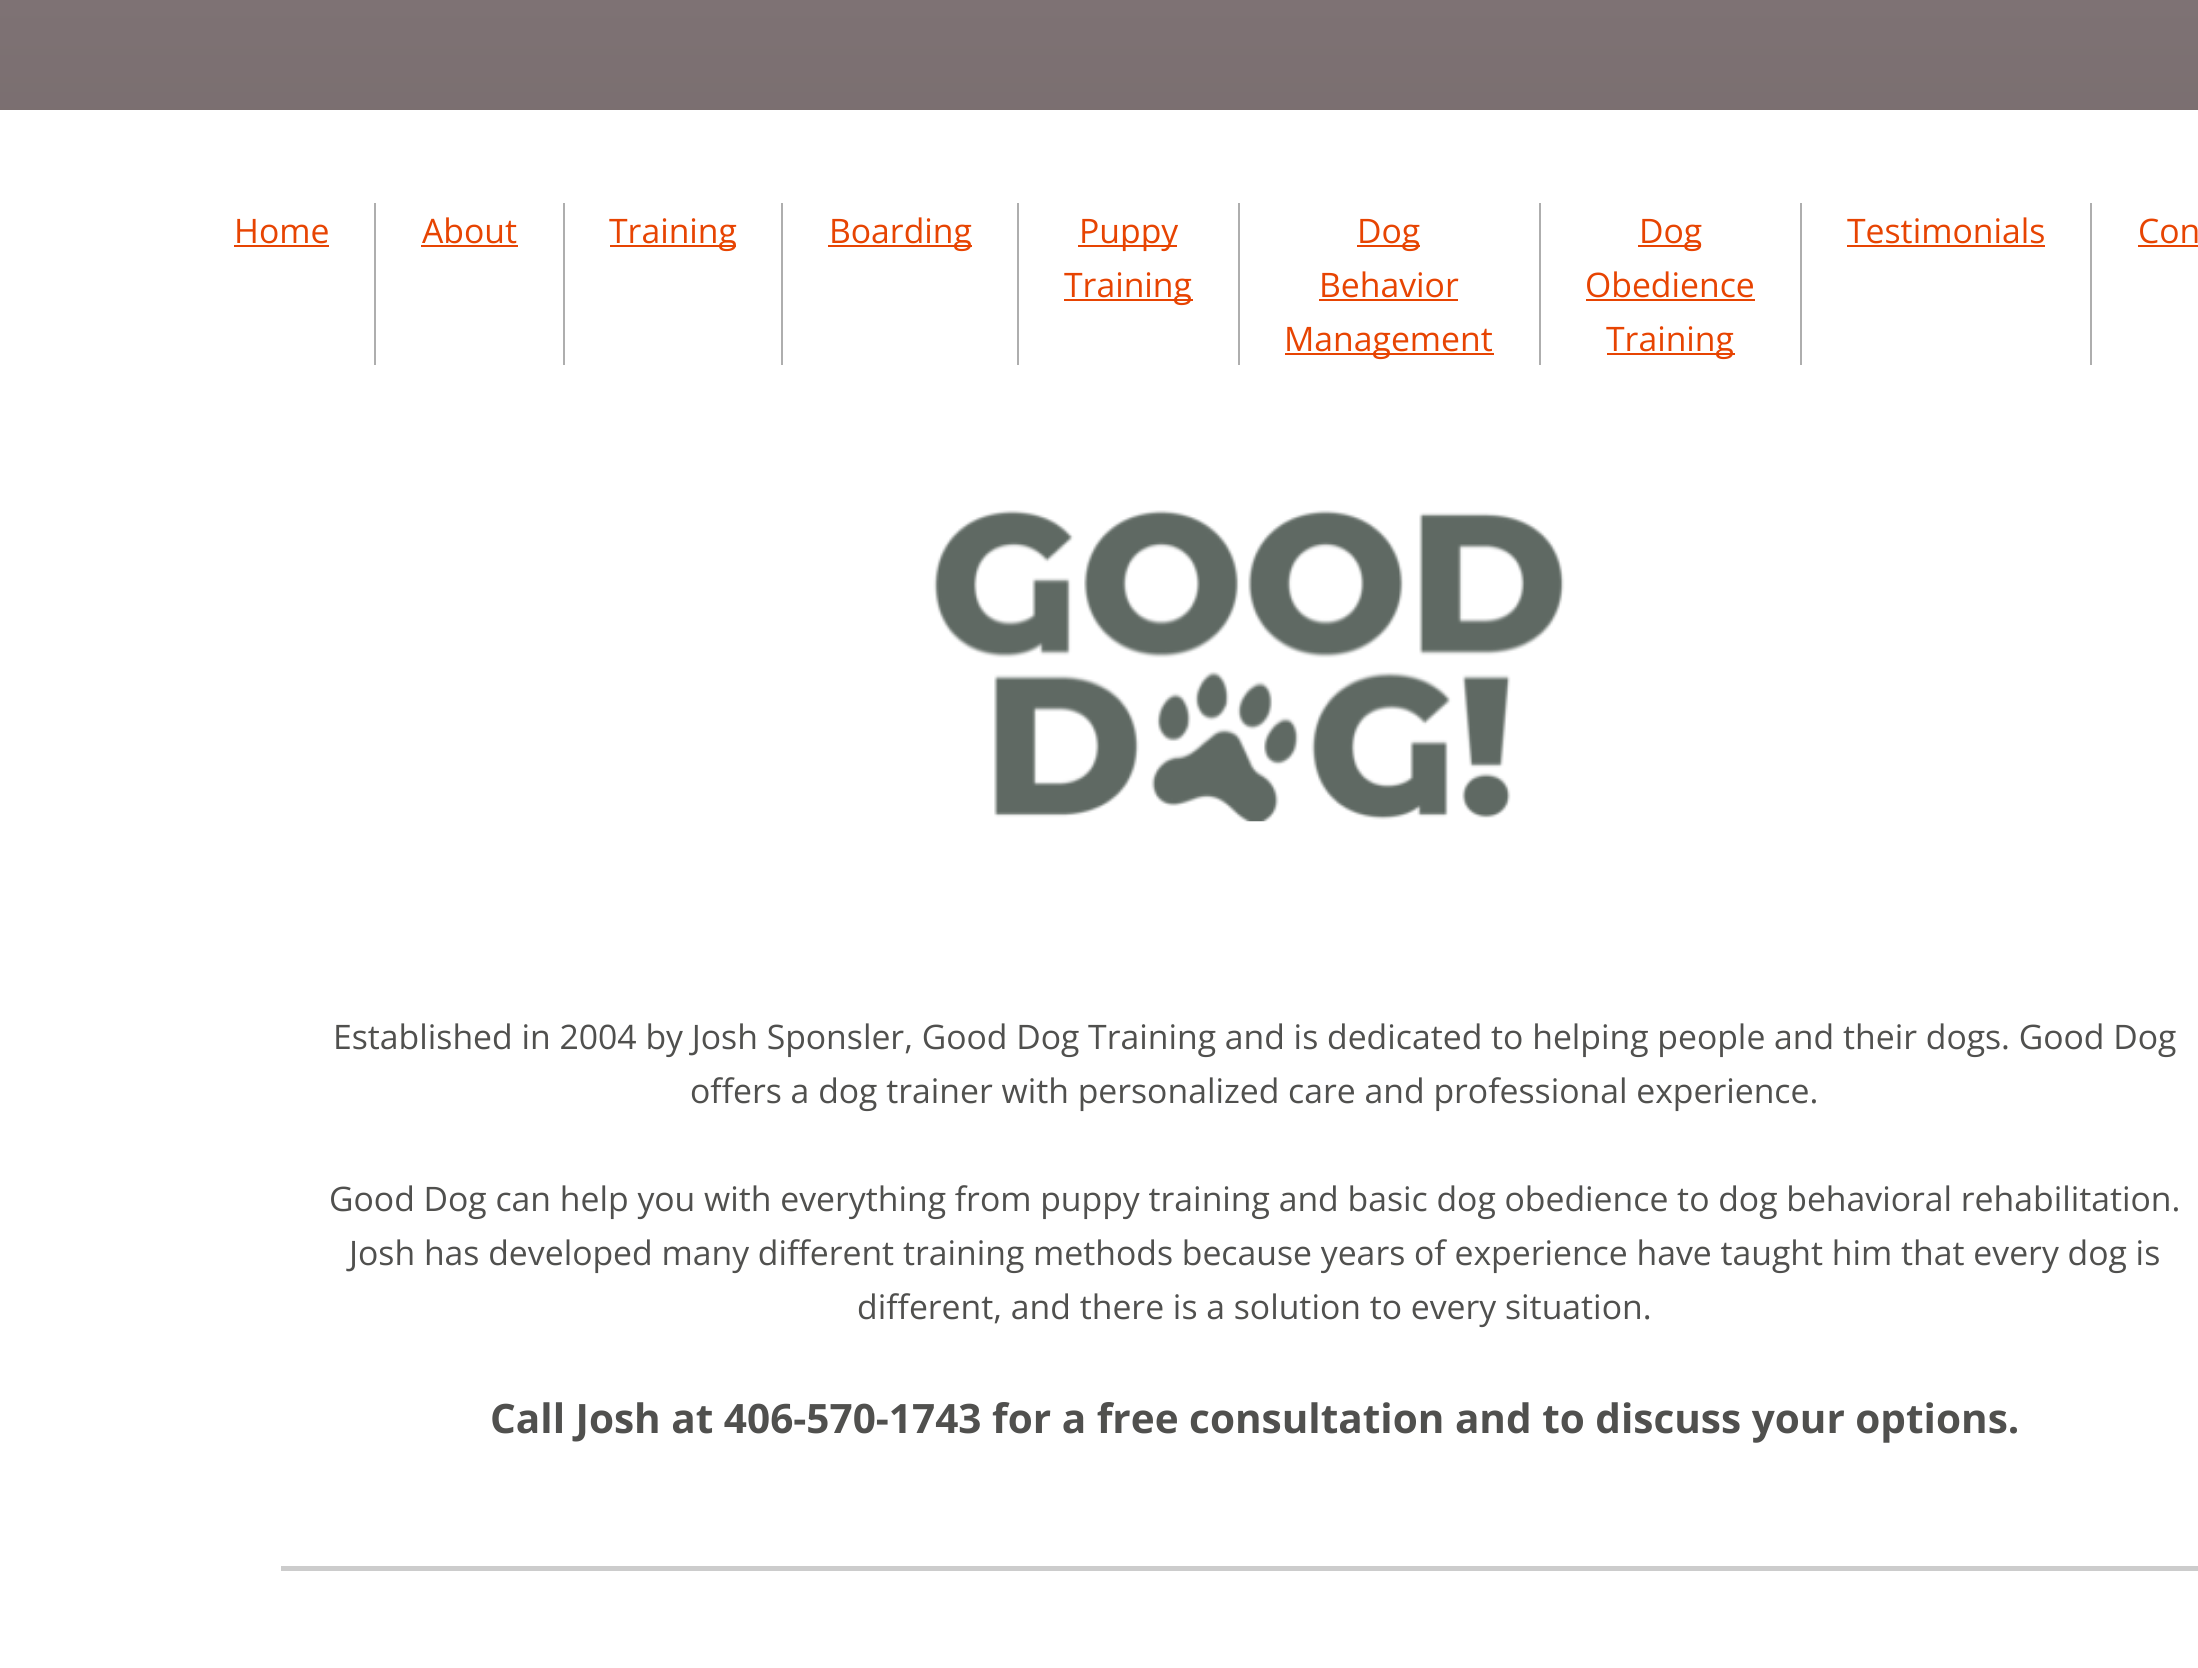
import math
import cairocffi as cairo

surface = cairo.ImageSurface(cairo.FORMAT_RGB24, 2198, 1668)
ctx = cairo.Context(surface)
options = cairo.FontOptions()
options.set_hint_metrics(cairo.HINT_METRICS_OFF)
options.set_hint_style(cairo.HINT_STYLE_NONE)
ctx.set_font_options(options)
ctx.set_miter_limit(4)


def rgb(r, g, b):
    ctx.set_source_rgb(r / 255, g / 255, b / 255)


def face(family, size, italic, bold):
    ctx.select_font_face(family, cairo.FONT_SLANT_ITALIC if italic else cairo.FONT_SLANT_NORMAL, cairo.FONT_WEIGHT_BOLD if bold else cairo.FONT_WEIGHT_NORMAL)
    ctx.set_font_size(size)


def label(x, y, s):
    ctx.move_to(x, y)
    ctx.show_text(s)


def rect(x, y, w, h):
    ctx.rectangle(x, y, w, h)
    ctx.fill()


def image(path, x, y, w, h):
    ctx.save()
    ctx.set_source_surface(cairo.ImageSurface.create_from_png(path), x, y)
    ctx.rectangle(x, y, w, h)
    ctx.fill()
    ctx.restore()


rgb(255, 255, 255)
ctx.paint()
gradient = cairo.LinearGradient(1099, 0, 1099, 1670)
gradient.add_color_stop_rgba(0, 0.494, 0.447, 0.455, 1)
gradient.add_color_stop_rgba(1, 0.298, 0.271, 0.239, 1)
ctx.set_source(gradient)
rect(0, 0, 2198, 110)
rgb(174, 174, 174)
rect(374, 203, 2, 162)
face('Open Sans', 33.75, 0, 0)
rgb(231, 68, 2)
label(234, 243, 'Home')
rect(234, 245, 95, 2)
rgb(174, 174, 174)
rect(563, 203, 2, 162)
rgb(231, 68, 2)
label(422, 243, 'About')
rect(421, 245, 97, 2)
rgb(174, 174, 174)
rect(781, 203, 2, 162)
rgb(231, 68, 2)
rect(610, 245, 126, 2)
label(609, 243, 'Training')
rgb(174, 174, 174)
rect(1017, 203, 2, 162)
rgb(231, 68, 2)
rect(828, 245, 144, 2)
label(829, 243, 'Boarding')
rgb(174, 174, 174)
rect(1238, 203, 2, 162)
rgb(231, 68, 2)
rect(1078, 245, 99, 2)
label(1079, 243, 'Puppy')
rect(1064, 299, 129, 2)
label(1064, 297, 'Training')
rgb(174, 174, 174)
rect(1539, 203, 2, 162)
rgb(231, 68, 2)
rect(1357, 245, 63, 2)
label(1357, 243, 'Dog')
label(1319, 297, 'Behavior')
rect(1319, 299, 139, 2)
rect(1285, 353, 209, 2)
label(1284, 351, 'Management')
rgb(174, 174, 174)
rect(1800, 203, 2, 162)
rgb(231, 68, 2)
rect(1638, 245, 63, 2)
label(1639, 243, 'Dog')
label(1585, 297, 'Obedience')
rect(1586, 299, 169, 2)
rect(1607, 353, 128, 2)
label(1606, 351, 'Training')
rgb(174, 174, 174)
rect(2090, 203, 2, 162)
rgb(231, 68, 2)
label(1847, 243, 'Testimonials')
rect(1847, 245, 198, 2)
label(2138, 243, 'Con')
rect(2138, 245, 60, 2)
image('image0.png', 933, 510, 632, 312)
rgb(80, 80, 78)
label(333, 1049, 'Established in 2004 by Josh Sponsler, Good Dog Training and is dedicated to helping people and their dogs. Good Dog')
label(690, 1103, 'offers a dog trainer with personalized care and professional experience.')
label(329, 1211, 'Good Dog can help you with everything from puppy training and basic dog obedience to dog behavioral rehabilitation.')
label(349, 1265, 'Josh has developed many different training methods because years of experience have taught him that every dog is')
label(857, 1319, 'different, and there is a solution to every situation.')
face('Open Sans', 40.5, 0, 1)
label(490, 1433, 'Call Josh at 406-570-1743 for a free consultation and to discuss your options.')
rgb(204, 204, 204)
rect(281, 1566, 1917, 5)
surface.write_to_png('render.png')
